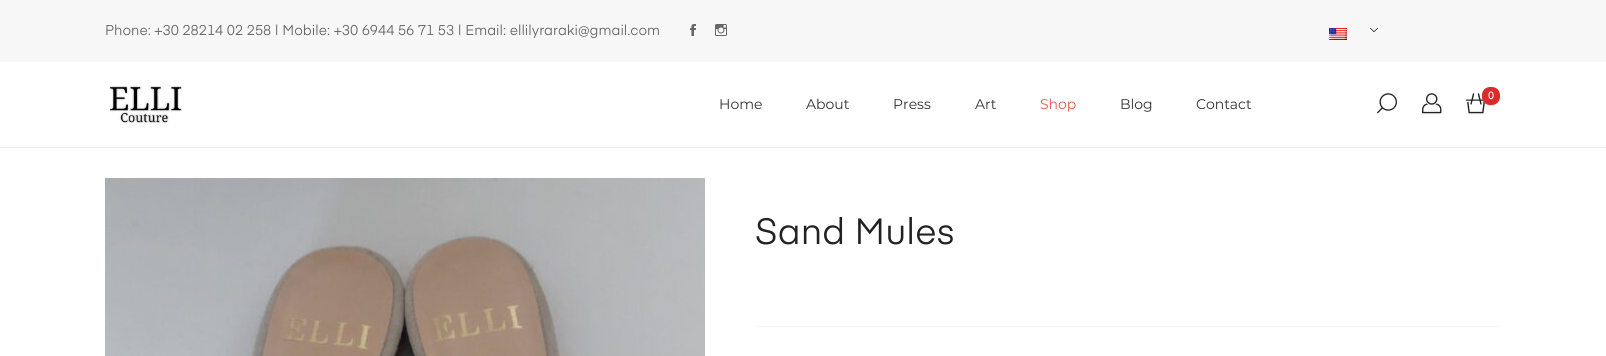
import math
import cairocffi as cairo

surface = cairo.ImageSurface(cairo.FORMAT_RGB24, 1606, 356)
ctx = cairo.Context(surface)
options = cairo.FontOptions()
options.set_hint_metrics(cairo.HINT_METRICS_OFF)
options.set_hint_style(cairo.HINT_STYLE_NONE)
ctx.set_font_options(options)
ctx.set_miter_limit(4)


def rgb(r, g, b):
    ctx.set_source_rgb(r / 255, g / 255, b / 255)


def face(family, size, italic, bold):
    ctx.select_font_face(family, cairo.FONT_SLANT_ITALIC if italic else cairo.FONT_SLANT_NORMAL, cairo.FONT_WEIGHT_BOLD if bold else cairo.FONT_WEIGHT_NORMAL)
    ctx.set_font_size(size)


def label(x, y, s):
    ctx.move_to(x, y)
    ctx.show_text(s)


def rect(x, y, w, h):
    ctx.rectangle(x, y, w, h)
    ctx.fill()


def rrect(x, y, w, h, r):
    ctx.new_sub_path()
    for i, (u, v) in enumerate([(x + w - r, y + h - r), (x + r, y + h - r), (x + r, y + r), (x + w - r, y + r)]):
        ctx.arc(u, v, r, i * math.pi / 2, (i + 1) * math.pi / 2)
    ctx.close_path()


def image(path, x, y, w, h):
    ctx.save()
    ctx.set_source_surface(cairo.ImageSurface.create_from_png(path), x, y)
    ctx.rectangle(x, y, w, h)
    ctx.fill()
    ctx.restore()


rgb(255, 255, 255)
ctx.paint()
rgb(247, 247, 247)
rect(0, 0, 1606, 62)
face('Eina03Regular', 14, 0, 0)
rgb(102, 102, 102)
label(105, 35, 'Phone: +30 28214 02 258 | Mobile: +30 6944 56 71 53 | Email: ellilyraraki@gmail.com')
image('image0.png', 690, 24, 6, 12)
image('image1.png', 715, 24, 12, 12)
image('image2.png', 1370, 27, 8, 5)
image('image3.png', 1329, 28, 18, 12)
rgb(238, 238, 238)
rect(0, 147, 1606, 1)
image('image4.png', 109, 86, 73, 37)
image('image5.png', 1377, 93, 20, 21)
image('image6.png', 1422, 93, 20, 21)
image('image7.png', 1466, 93, 19, 21)
rgb(221, 42, 42)
rrect(1482, 87, 18, 18, 8)
ctx.fill()
face('Eina03Regular', 10, 0, 1)
rgb(255, 255, 255)
label(1488, 99, '0')
face('Montserrat', 14, 0, 0)
rgb(51, 51, 51)
label(719, 109, 'Home')
label(806, 109, 'About')
label(893, 109, 'Press')
label(975, 109, 'Art')
rgb(236, 88, 73)
label(1040, 109, 'Shop')
rgb(51, 51, 51)
label(1120, 109, 'Blog')
label(1196, 109, 'Contact')
image('image8.png', 105, 178, 600, 178)
face('Eina03Regular', 36, 0, 0)
rgb(34, 34, 34)
label(755, 244, 'Sand Mules')
rgb(248, 245, 245)
rect(755, 326, 746, 1)
surface.write_to_png('render.png')
